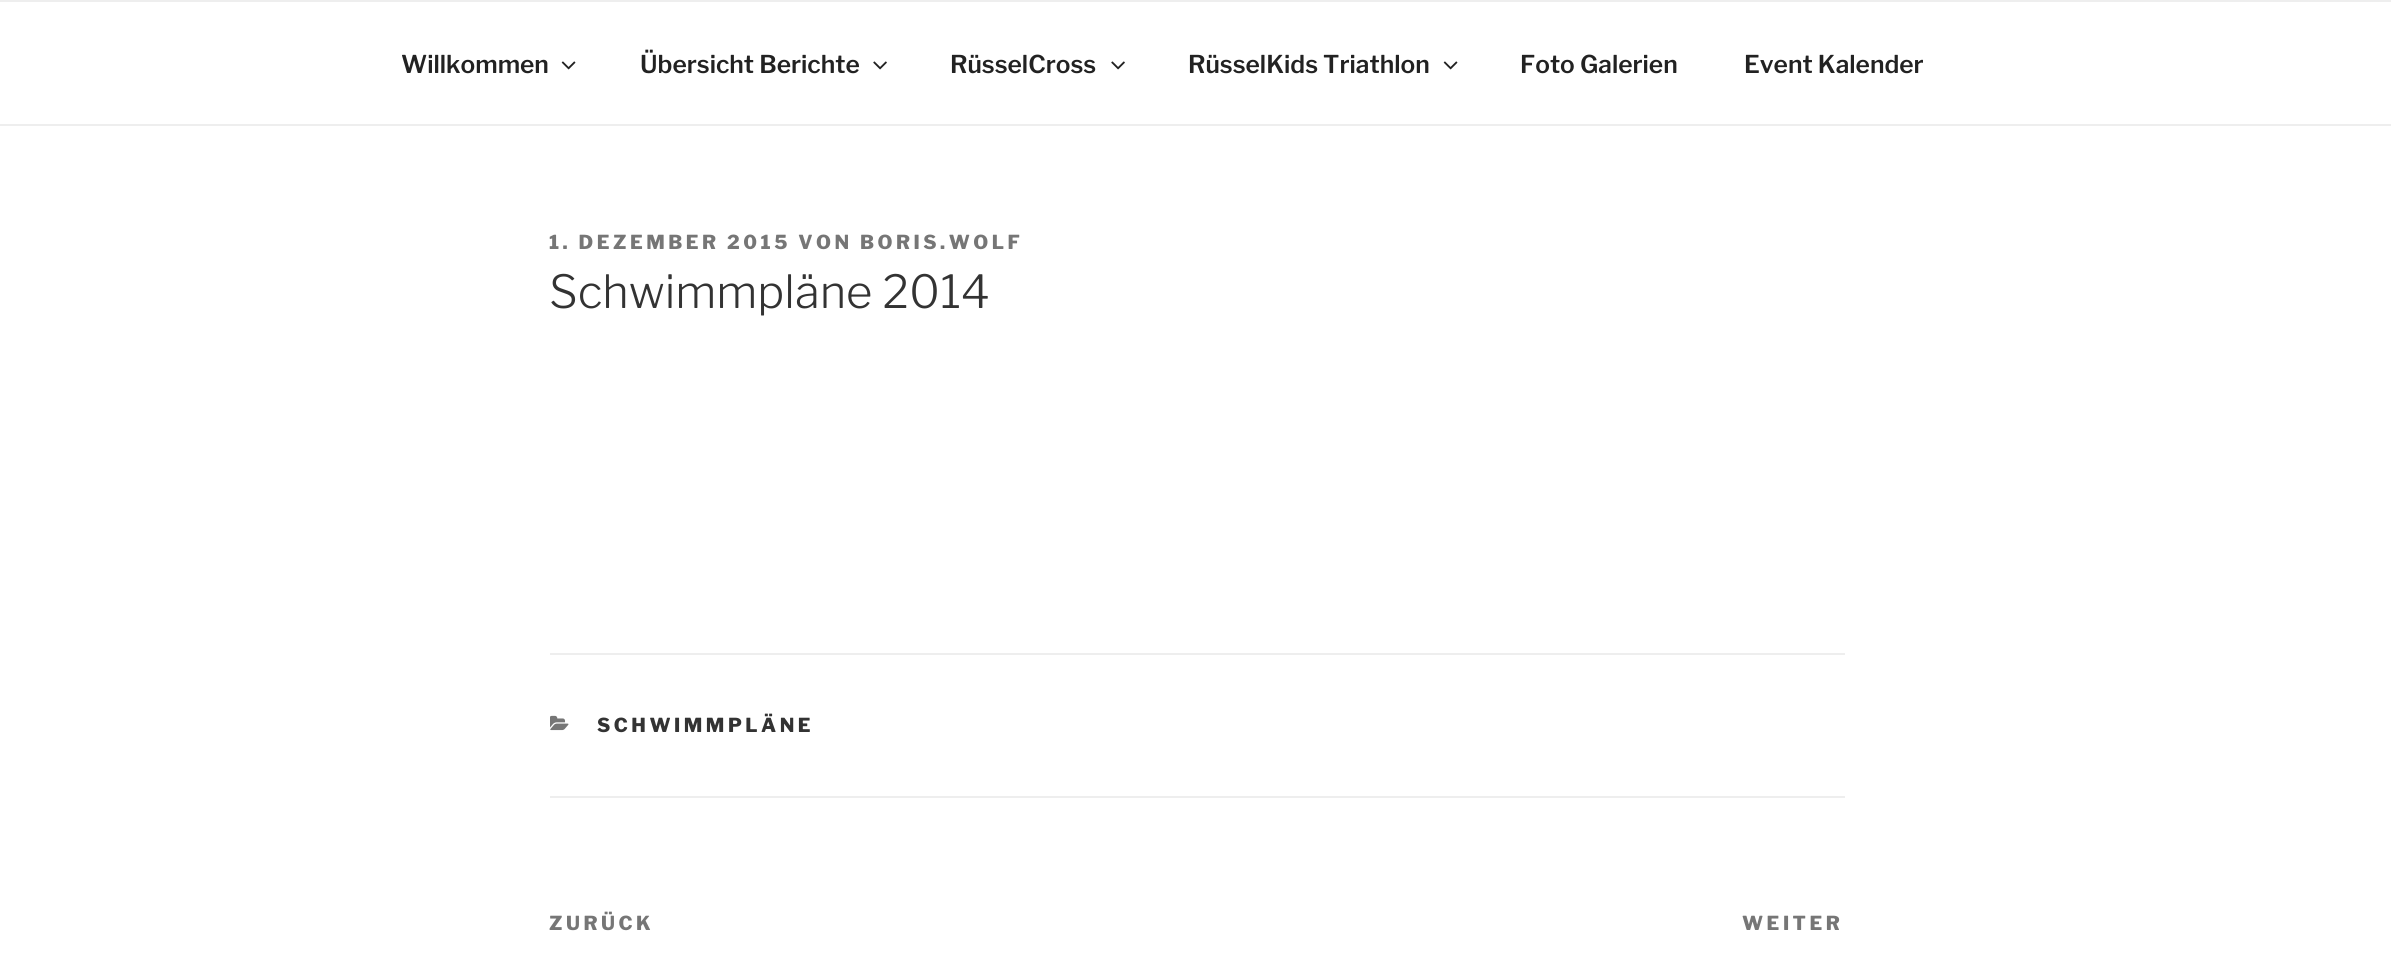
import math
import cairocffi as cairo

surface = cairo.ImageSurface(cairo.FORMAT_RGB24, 2391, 954)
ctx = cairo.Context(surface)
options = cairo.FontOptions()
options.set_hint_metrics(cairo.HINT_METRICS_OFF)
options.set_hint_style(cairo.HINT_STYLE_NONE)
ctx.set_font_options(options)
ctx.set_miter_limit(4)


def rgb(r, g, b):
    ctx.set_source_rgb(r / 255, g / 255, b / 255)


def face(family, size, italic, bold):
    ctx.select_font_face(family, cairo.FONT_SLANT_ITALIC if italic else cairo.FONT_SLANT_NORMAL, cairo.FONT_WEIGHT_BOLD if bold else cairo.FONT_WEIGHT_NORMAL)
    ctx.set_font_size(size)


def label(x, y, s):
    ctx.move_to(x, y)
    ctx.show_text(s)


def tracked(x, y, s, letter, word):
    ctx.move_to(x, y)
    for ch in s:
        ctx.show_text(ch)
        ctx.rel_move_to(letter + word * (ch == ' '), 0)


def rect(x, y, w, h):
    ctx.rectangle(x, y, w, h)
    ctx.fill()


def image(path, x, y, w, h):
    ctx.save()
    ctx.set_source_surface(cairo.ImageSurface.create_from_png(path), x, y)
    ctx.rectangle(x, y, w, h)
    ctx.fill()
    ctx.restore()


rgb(255, 255, 255)
ctx.paint()
rgb(238, 238, 238)
rect(0, 0, 2391, 2)
rect(0, 124, 2391, 2)
face('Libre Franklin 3 Thin', 24.5, 0, 0)
rgb(34, 34, 34)
label(401, 73, 'Willkommen')
image('image0.png', 561, 61, 15, 9)
label(640, 73, 'Übersicht Berichte')
image('image1.png', 873, 61, 14, 9)
label(950, 73, 'RüsselCross')
image('image1.png', 1111, 61, 14, 9)
label(1188, 73, 'RüsselKids Triathlon')
image('image0.png', 1443, 61, 15, 9)
label(1520, 73, 'Foto Galerien')
label(1744, 73, 'Event Kalender')
face('Libre Franklin Thin', 19.25, 0, 0)
rgb(118, 118, 118)
tracked(549, 249, '1. DEZEMBER 2015 VON BORIS.WOLF', 3.5, 0)
face('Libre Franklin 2 Thin', 45.5, 0, 0)
rgb(51, 51, 51)
label(549, 308, 'Schwimmpläne 2014')
rgb(238, 238, 238)
rect(550, 653, 1295, 2)
rect(550, 796, 1295, 2)
image('image2.png', 550, 715, 19, 16)
face('Libre Franklin Thin', 19.25, 0, 0)
rgb(51, 51, 51)
tracked(597, 732, 'SCHWIMMPLÄNE', 3.5, 0)
rgb(118, 118, 118)
tracked(549, 930, 'ZURÜCK', 3.5, 0)
tracked(1742, 930, 'WEITER', 3.5, 0)
surface.write_to_png('render.png')
